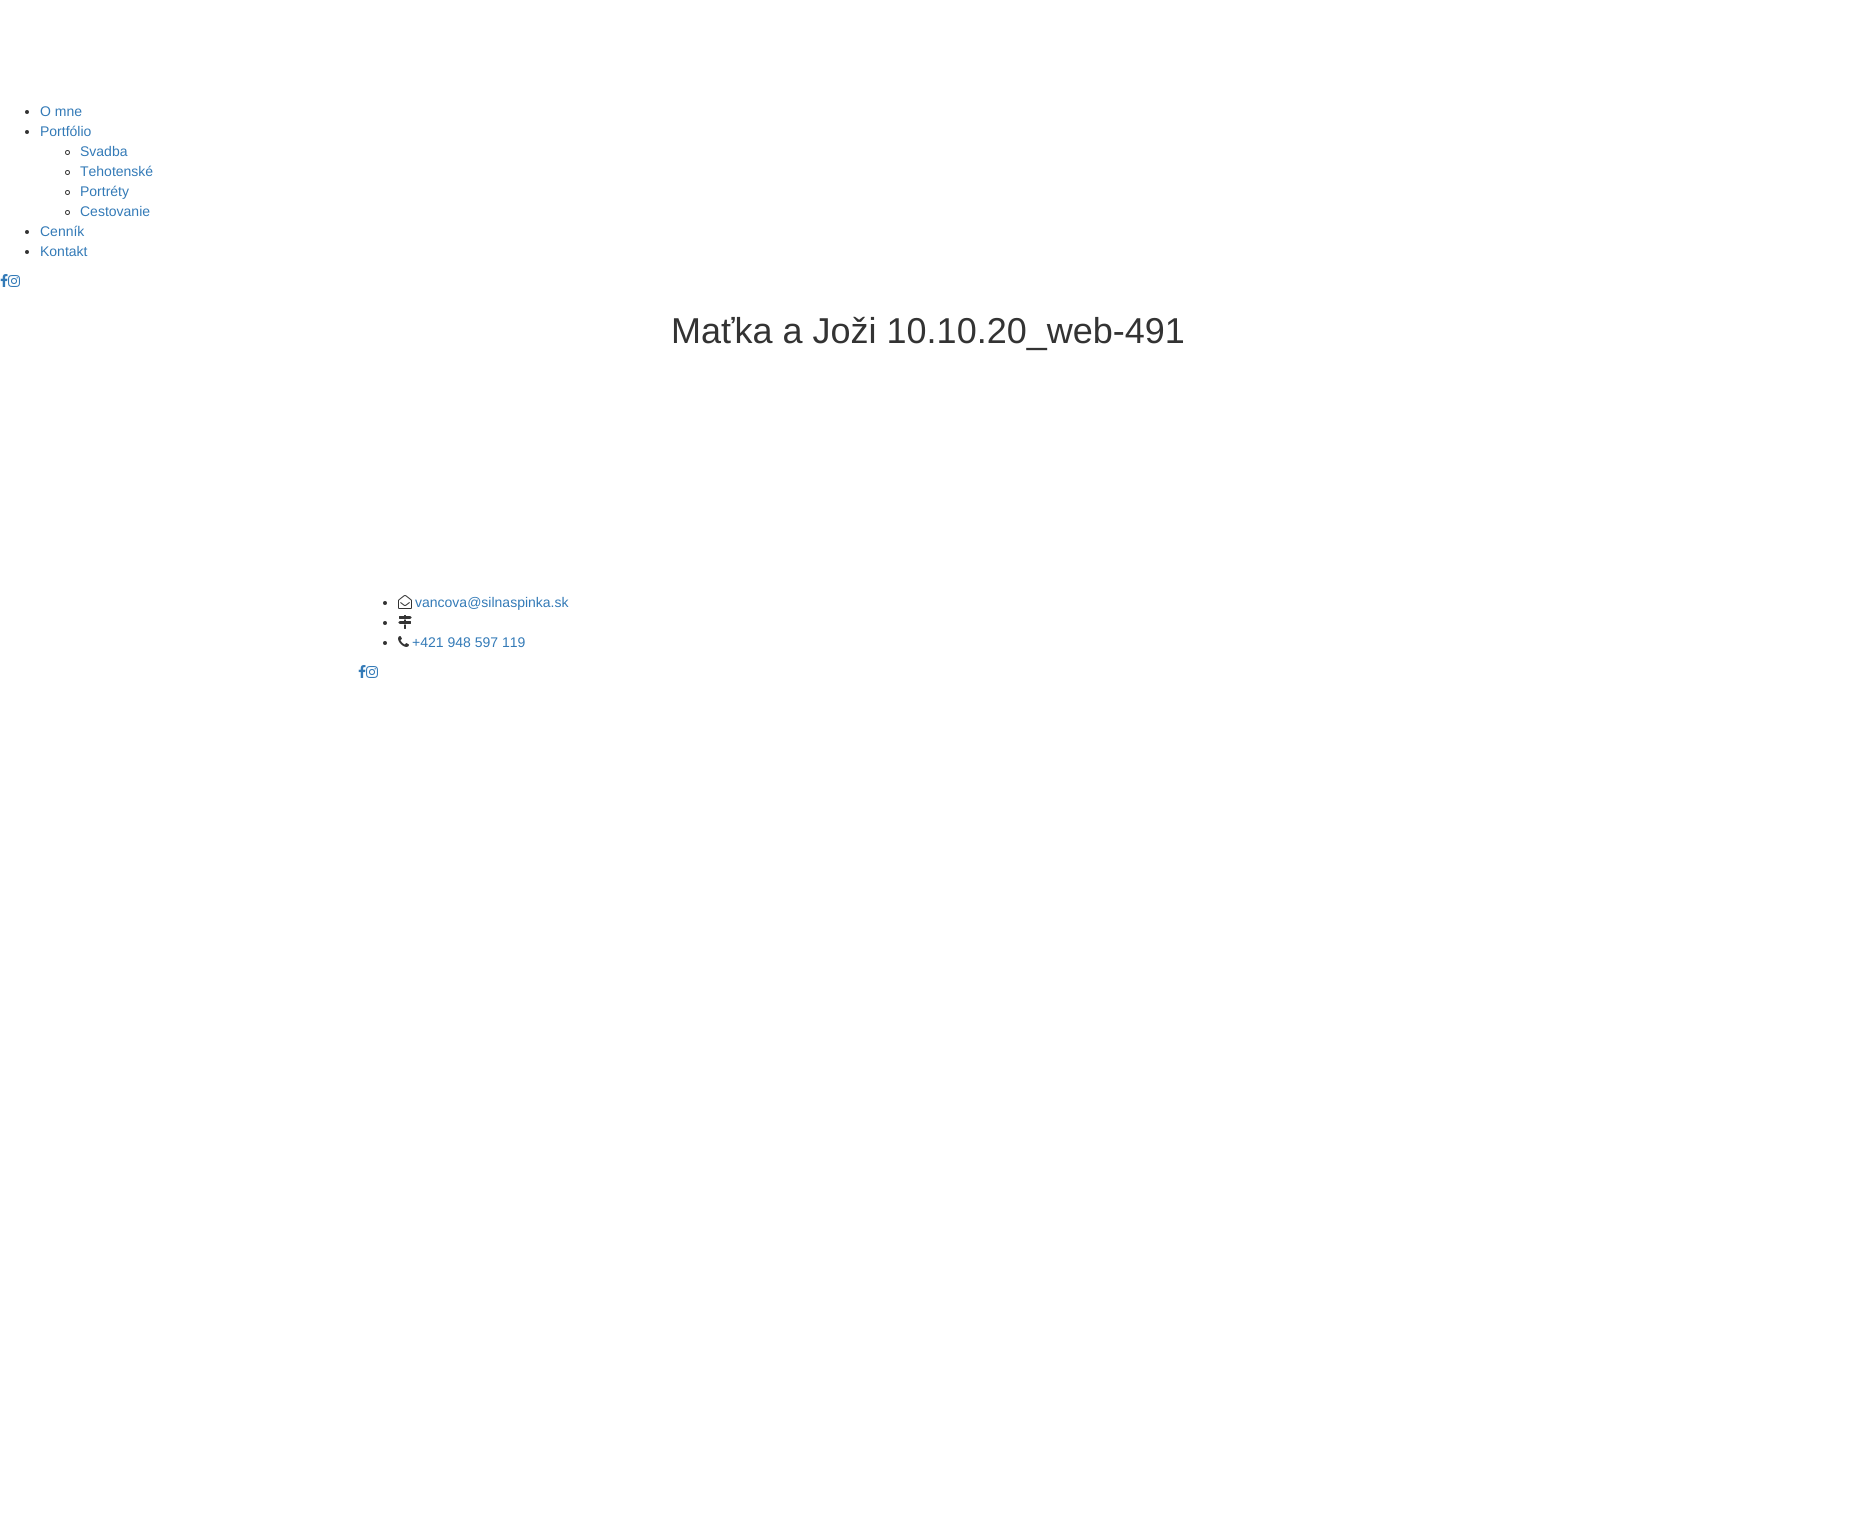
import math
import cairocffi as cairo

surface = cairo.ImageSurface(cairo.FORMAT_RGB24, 1855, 1535)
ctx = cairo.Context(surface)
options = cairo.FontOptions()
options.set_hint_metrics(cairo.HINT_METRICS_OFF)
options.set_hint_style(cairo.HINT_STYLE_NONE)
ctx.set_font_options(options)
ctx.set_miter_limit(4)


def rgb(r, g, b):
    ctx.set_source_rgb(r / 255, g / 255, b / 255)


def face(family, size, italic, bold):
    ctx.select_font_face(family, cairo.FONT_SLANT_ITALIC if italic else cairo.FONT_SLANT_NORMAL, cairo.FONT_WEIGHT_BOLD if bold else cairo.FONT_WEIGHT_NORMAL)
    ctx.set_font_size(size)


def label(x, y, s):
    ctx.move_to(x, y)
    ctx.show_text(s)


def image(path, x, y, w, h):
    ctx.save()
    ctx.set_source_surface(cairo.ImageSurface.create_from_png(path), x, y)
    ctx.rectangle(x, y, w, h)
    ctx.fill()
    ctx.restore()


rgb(255, 255, 255)
ctx.paint()
rgb(51, 51, 51)
ctx.arc(27, 112, 2, 0, 2 * math.pi)
ctx.fill()
face('Liberation Sans', 14, 0, 0)
rgb(51, 122, 183)
label(40, 116, 'O mne')
rgb(51, 51, 51)
ctx.new_path()
ctx.arc(27, 132, 2, 0, 2 * math.pi)
ctx.fill()
rgb(51, 122, 183)
label(40, 136, 'Portfólio')
ctx.new_path()
ctx.arc(67.5, 152.5, 2, 0, 2 * math.pi)
rgb(51, 51, 51)
ctx.set_line_width(1)
ctx.stroke()
rgb(51, 122, 183)
label(80, 156, 'Svadba')
ctx.new_path()
ctx.arc(67.5, 172.5, 2, 0, 2 * math.pi)
rgb(51, 51, 51)
ctx.stroke()
rgb(51, 122, 183)
label(80, 176, 'Tehotenské')
ctx.new_path()
ctx.arc(67.5, 192.5, 2, 0, 2 * math.pi)
rgb(51, 51, 51)
ctx.stroke()
rgb(51, 122, 183)
label(80, 196, 'Portréty')
ctx.new_path()
ctx.arc(67.5, 212.5, 2, 0, 2 * math.pi)
rgb(51, 51, 51)
ctx.stroke()
rgb(51, 122, 183)
label(80, 216, 'Cestovanie')
rgb(51, 51, 51)
ctx.new_path()
ctx.arc(27, 232, 2, 0, 2 * math.pi)
ctx.fill()
rgb(51, 122, 183)
label(40, 236, 'Cenník')
rgb(51, 51, 51)
ctx.new_path()
ctx.arc(27, 252, 2, 0, 2 * math.pi)
ctx.fill()
rgb(51, 122, 183)
label(40, 256, 'Kontakt')
image('image0.png', 0, 274, 8, 13)
image('image1.png', 8, 275, 12, 12)
face('Liberation Sans', 36, 0, 0)
rgb(51, 51, 51)
label(671, 343, 'Maťka a Joži 10.10.20_web-491')
ctx.new_path()
ctx.arc(385, 603, 2, 0, 2 * math.pi)
ctx.fill()
image('image2.png', 398, 595, 14, 14)
face('Liberation Sans', 14, 0, 0)
rgb(51, 122, 183)
label(415, 607, 'vancova@silnaspinka.sk')
rgb(51, 51, 51)
ctx.new_path()
ctx.arc(385, 623, 2, 0, 2 * math.pi)
ctx.fill()
image('image3.png', 398, 615, 14, 14)
ctx.arc(385, 643, 2, 0, 2 * math.pi)
ctx.fill()
image('image4.png', 398, 636, 11, 11)
rgb(51, 122, 183)
label(412, 647, '+421 948 597 119')
image('image0.png', 358, 665, 8, 13)
image('image1.png', 366, 666, 12, 12)
surface.write_to_png('render.png')
